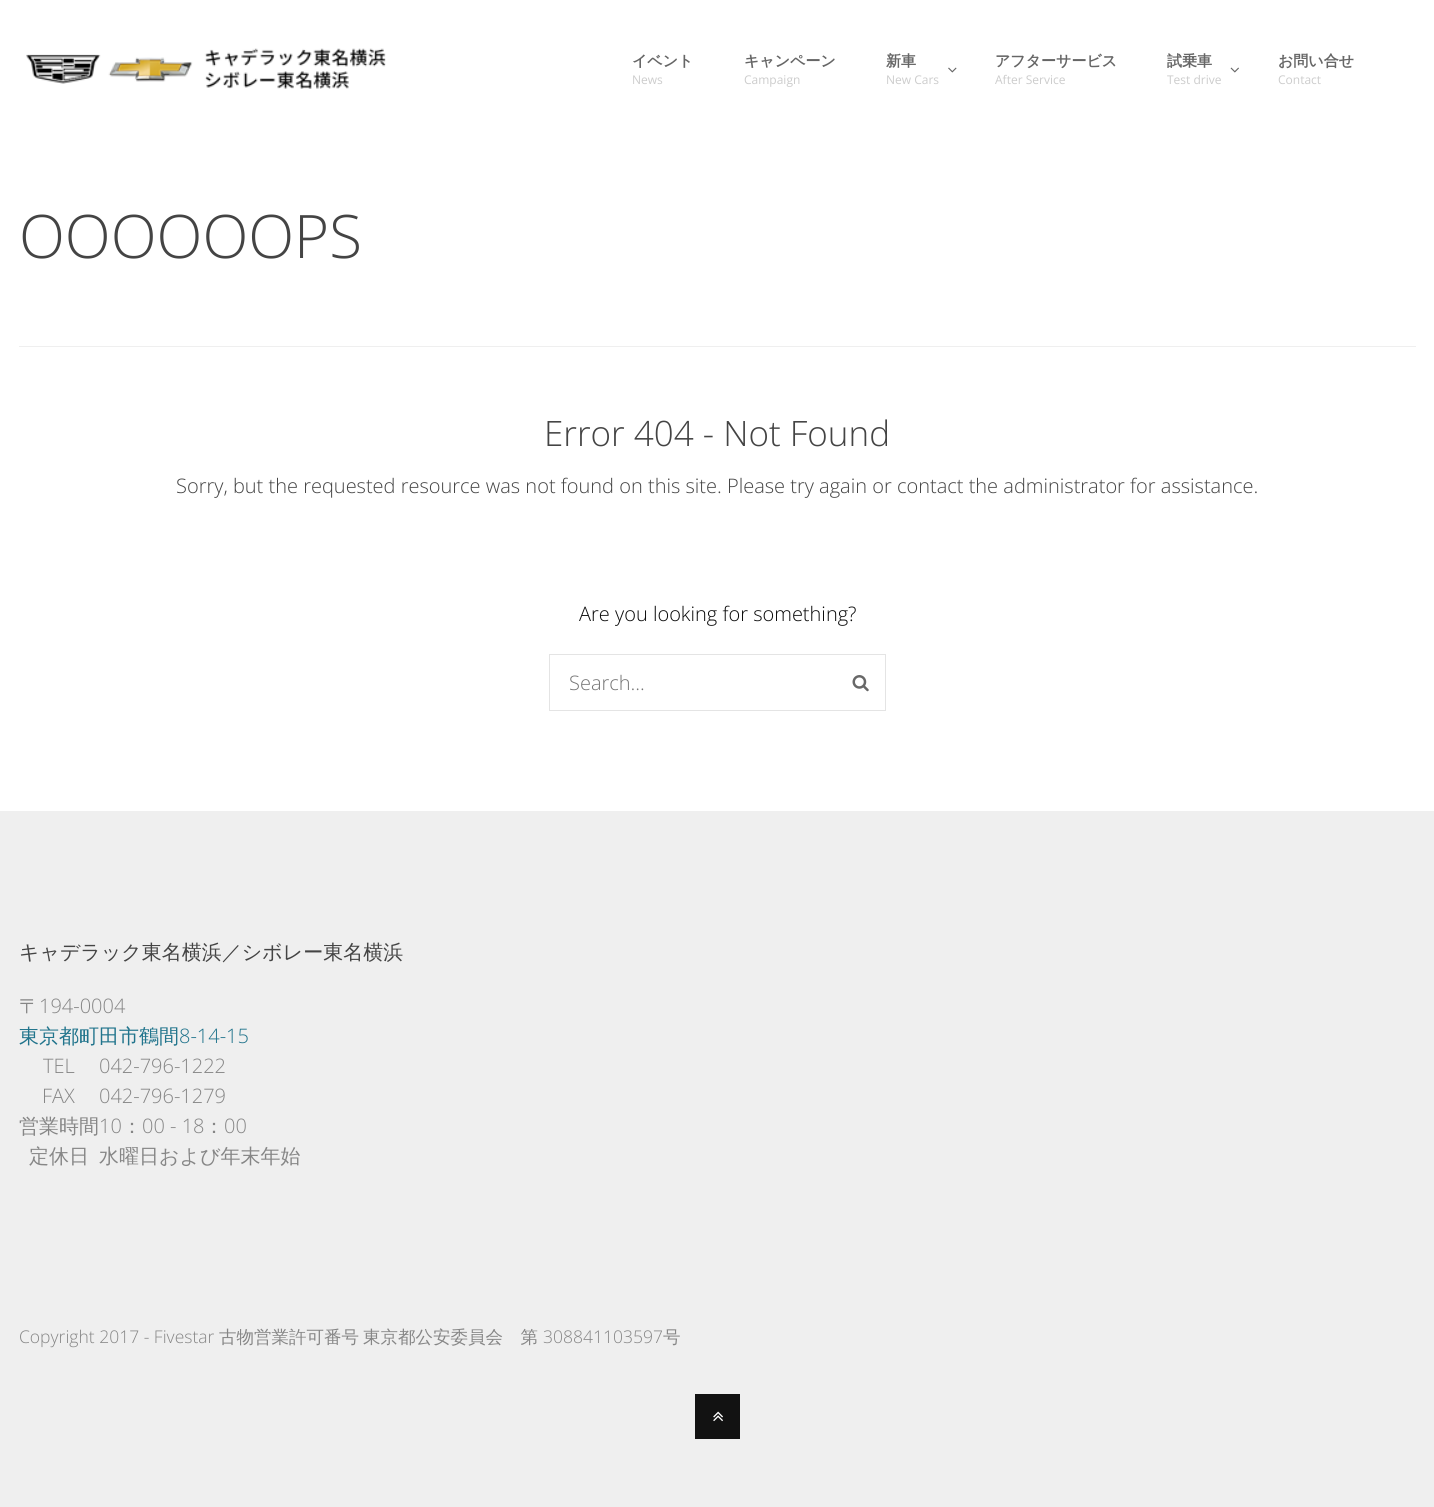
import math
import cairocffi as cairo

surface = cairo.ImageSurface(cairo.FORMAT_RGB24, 1434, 1507)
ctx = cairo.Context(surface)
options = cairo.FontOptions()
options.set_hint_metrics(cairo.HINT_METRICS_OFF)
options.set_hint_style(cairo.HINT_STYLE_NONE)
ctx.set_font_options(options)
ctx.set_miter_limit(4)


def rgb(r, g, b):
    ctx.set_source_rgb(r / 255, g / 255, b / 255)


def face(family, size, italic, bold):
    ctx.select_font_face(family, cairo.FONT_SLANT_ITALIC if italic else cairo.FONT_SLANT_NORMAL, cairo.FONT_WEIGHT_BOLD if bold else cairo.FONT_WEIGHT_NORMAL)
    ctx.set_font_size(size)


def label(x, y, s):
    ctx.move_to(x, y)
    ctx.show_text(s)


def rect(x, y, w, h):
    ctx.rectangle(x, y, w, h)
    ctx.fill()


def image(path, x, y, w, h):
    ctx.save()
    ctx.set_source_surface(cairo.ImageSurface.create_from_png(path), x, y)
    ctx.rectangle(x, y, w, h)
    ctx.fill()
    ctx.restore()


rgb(239, 239, 239)
ctx.paint()
rgb(255, 255, 255)
rect(0, 0, 1434, 811)
image('image0.png', 26, 48, 360, 41)
face('WenQuanYi Zen Hei', 15, 0, 1)
rgb(102, 102, 102)
label(632, 66, 'イベント')
face('Open Sans', 12, 0, 0)
rgb(204, 204, 204)
label(632, 84, 'News')
face('WenQuanYi Zen Hei', 15, 0, 1)
rgb(102, 102, 102)
label(744, 66, 'キャンペーン')
face('Open Sans', 12, 0, 0)
rgb(204, 204, 204)
label(744, 84, 'Campaign')
face('WenQuanYi Zen Hei', 15, 0, 1)
rgb(102, 102, 102)
label(886, 66, '新車')
image('image1.png', 948, 67, 9, 6)
face('Open Sans', 12, 0, 0)
rgb(204, 204, 204)
label(886, 84, 'New Cars')
face('WenQuanYi Zen Hei', 15, 0, 1)
rgb(102, 102, 102)
label(995, 66, 'アフターサービス')
face('Open Sans', 12, 0, 0)
rgb(204, 204, 204)
label(995, 84, 'After Service')
face('WenQuanYi Zen Hei', 15, 0, 1)
rgb(102, 102, 102)
label(1167, 66, '試乗車')
image('image2.png', 1230, 67, 9, 6)
face('Open Sans', 12, 0, 0)
rgb(204, 204, 204)
label(1167, 84, 'Test drive')
face('WenQuanYi Zen Hei', 15, 0, 1)
rgb(102, 102, 102)
label(1278, 66, 'お問い合せ')
face('Open Sans', 12, 0, 0)
rgb(204, 204, 204)
label(1278, 84, 'Contact')
rgb(239, 239, 239)
rect(19, 346, 1397, 1)
face('Open Sans Light', 60, 0, 0)
rgb(68, 68, 68)
label(19, 258, 'OOOOOOPS')
face('Open Sans Light', 35, 0, 0)
label(544, 446, 'Error 404 - Not Found')
face('Open Sans Light', 20, 0, 0)
label(176, 493, 'Sorry, but the requested resource was not found on this site. Please try again or contact the administrator for assistance.')
rgb(10, 10, 10)
label(579, 621, 'Are you looking for something?')
ctx.rectangle(549.5, 654.5, 336, 56)
rgb(228, 228, 228)
ctx.set_line_width(1)
ctx.stroke()
rgb(117, 117, 117)
label(569, 690, 'Search...')
image('image3.png', 852, 675, 17, 17)
face('WenQuanYi Zen Hei Medium', 20, 0, 0)
rgb(68, 68, 68)
label(19, 959, 'キャデラック東名横浜／シボレー東名横浜')
rgb(134, 134, 134)
label(19, 1013, '〒')
face('Open Sans Light', 20, 0, 0)
label(39, 1013, '194-0004')
face('WenQuanYi Zen Hei Medium', 20, 0, 0)
rgb(33, 116, 140)
label(19, 1043, '東京都町田市鶴間')
face('Open Sans Light', 20, 0, 0)
label(179, 1043, '8-14-15')
rgb(134, 134, 134)
label(43, 1073, 'TEL')
label(99, 1073, '042-796-1222')
label(42, 1103, 'FAX')
label(99, 1103, '042-796-1279')
face('WenQuanYi Zen Hei Medium', 20, 0, 0)
label(19, 1133, '営業時間')
face('Open Sans Light', 20, 0, 0)
label(99, 1133, '10')
face('WenQuanYi Zen Hei Medium', 20, 0, 0)
label(122, 1133, '：')
face('Open Sans Light', 20, 0, 0)
label(142, 1133, '00 - 18')
face('WenQuanYi Zen Hei Medium', 20, 0, 0)
label(204, 1133, '：')
face('Open Sans Light', 20, 0, 0)
label(224, 1133, '00')
face('WenQuanYi Zen Hei Medium', 20, 0, 0)
label(29, 1163, '定休日')
label(99, 1163, '水曜日および年末年始')
face('Open Sans Light', 17.5, 0, 0)
label(19, 1343, 'Copyright 2017 - Fivestar')
face('WenQuanYi Zen Hei Medium', 17.5, 0, 0)
label(219, 1343, '古物営業許可番号')
label(363, 1343, '東京都公安委員会　第')
face('Open Sans Light', 17.5, 0, 0)
label(543, 1343, '308841103597')
face('WenQuanYi Zen Hei Medium', 17.5, 0, 0)
label(663, 1343, '号')
rgb(18, 18, 18)
rect(695, 1394, 45, 45)
image('image4.png', 713, 1411, 10, 11)
surface.write_to_png('render.png')
